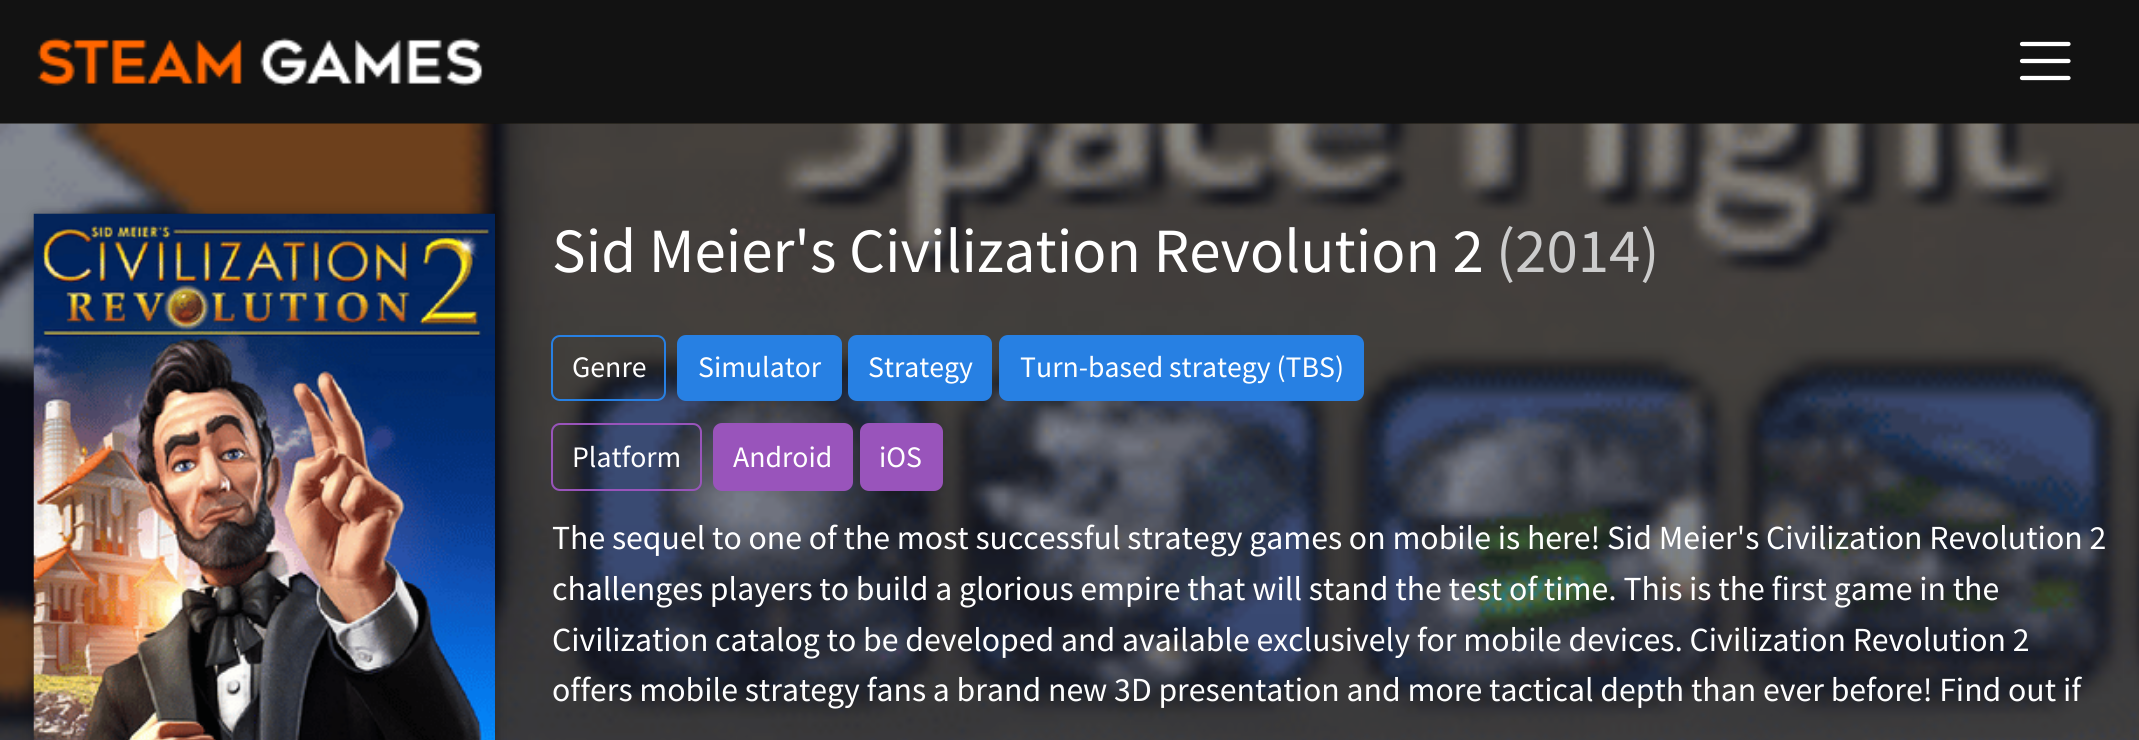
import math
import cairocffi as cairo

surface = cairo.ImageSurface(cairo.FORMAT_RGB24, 2139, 740)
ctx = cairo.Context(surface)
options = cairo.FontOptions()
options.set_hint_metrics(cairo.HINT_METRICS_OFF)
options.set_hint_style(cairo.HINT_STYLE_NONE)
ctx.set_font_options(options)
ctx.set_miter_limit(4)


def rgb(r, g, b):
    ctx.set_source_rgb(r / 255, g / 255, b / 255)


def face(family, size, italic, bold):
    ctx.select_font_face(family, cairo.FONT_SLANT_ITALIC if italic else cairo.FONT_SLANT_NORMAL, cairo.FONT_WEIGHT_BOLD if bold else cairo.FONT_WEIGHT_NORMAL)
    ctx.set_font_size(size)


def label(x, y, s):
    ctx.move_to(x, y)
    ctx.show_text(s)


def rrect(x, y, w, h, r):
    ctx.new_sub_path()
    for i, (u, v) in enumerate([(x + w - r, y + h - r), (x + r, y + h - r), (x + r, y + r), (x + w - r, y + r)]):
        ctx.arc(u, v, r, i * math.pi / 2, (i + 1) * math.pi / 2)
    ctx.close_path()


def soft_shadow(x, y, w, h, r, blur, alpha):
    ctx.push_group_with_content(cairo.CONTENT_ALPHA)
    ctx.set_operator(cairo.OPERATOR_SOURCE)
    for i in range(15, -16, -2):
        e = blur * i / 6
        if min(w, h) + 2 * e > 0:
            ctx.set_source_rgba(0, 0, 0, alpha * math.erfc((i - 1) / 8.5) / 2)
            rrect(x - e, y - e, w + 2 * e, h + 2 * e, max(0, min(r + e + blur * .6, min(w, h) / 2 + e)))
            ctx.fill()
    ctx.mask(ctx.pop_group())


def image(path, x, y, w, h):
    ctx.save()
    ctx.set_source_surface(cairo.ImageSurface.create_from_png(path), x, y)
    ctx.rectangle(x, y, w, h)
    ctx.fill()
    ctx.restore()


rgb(18, 18, 18)
ctx.paint()
image('image0.png', 37, 37, 446, 49)
ctx.new_path()
ctx.move_to(2022, 44)
ctx.line_to(2068.5, 44)
ctx.move_to(2022, 61)
ctx.line_to(2068.5, 61)
ctx.move_to(2022, 78)
ctx.line_to(2068.5, 78)
rgb(255, 255, 255)
ctx.set_line_width(4.2)
ctx.set_line_cap(cairo.LINE_CAP_ROUND)
ctx.stroke()
image('image1.png', 0, 123, 2139, 617)
rgb(0, 0, 0)
soft_shadow(34, 214, 461, 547, 0, 7, 0.27)
image('image2.png', 33, 213, 462, 527)
face('Source Sans Pro', 63, 0, 0)
rgb(255, 255, 255)
label(552, 272, 'Sid Meier\'s Civilization Revolution 2')
rgb(204, 204, 204)
label(1496, 272, '(2014)')
rrect(552, 336, 113, 64, 8)
rgb(39, 128, 227)
ctx.set_line_width(2)
ctx.set_line_cap(cairo.LINE_CAP_BUTT)
ctx.stroke()
face('Source Sans Pro', 29.75, 0, 0)
rgb(255, 255, 255)
label(572, 377, 'Genre')
rgb(39, 128, 227)
rrect(678, 336, 163, 64, 8)
ctx.fill_preserve()
ctx.stroke()
rgb(255, 255, 255)
label(698, 377, 'Simulator')
rgb(39, 128, 227)
rrect(849, 336, 142, 64, 8)
ctx.fill_preserve()
ctx.stroke()
rgb(255, 255, 255)
label(868, 377, 'Strategy')
rgb(39, 128, 227)
rrect(1000, 336, 363, 64, 8)
ctx.fill_preserve()
ctx.stroke()
rgb(255, 255, 255)
label(1020, 377, 'Turn-based strategy (TBS)')
rrect(552, 424, 149, 66, 8)
rgb(153, 84, 187)
ctx.stroke()
rgb(255, 255, 255)
label(572, 467, 'Platform')
rgb(153, 84, 187)
rrect(714, 424, 138, 66, 8)
ctx.fill_preserve()
ctx.stroke()
rgb(255, 255, 255)
label(733, 467, 'Android')
rgb(153, 84, 187)
rrect(861, 424, 81, 66, 8)
ctx.fill_preserve()
ctx.stroke()
rgb(255, 255, 255)
label(879, 467, 'iOS')
face('Source Sans Pro', 33.75, 0, 0)
label(552, 549, 'The sequel to one of the most successful strategy games on mobile is here! Sid Meier\'s Civilization Revolution 2')
label(552, 600, 'challenges players to build a glorious empire that will stand the test of time. This is the first game in the')
label(552, 651, 'Civilization catalog to be developed and available exclusively for mobile devices. Civilization Revolution 2')
label(552, 701, 'offers mobile strategy fans a brand new 3D presentation and more tactical depth than ever before! Find out if')
surface.write_to_png('render.png')
